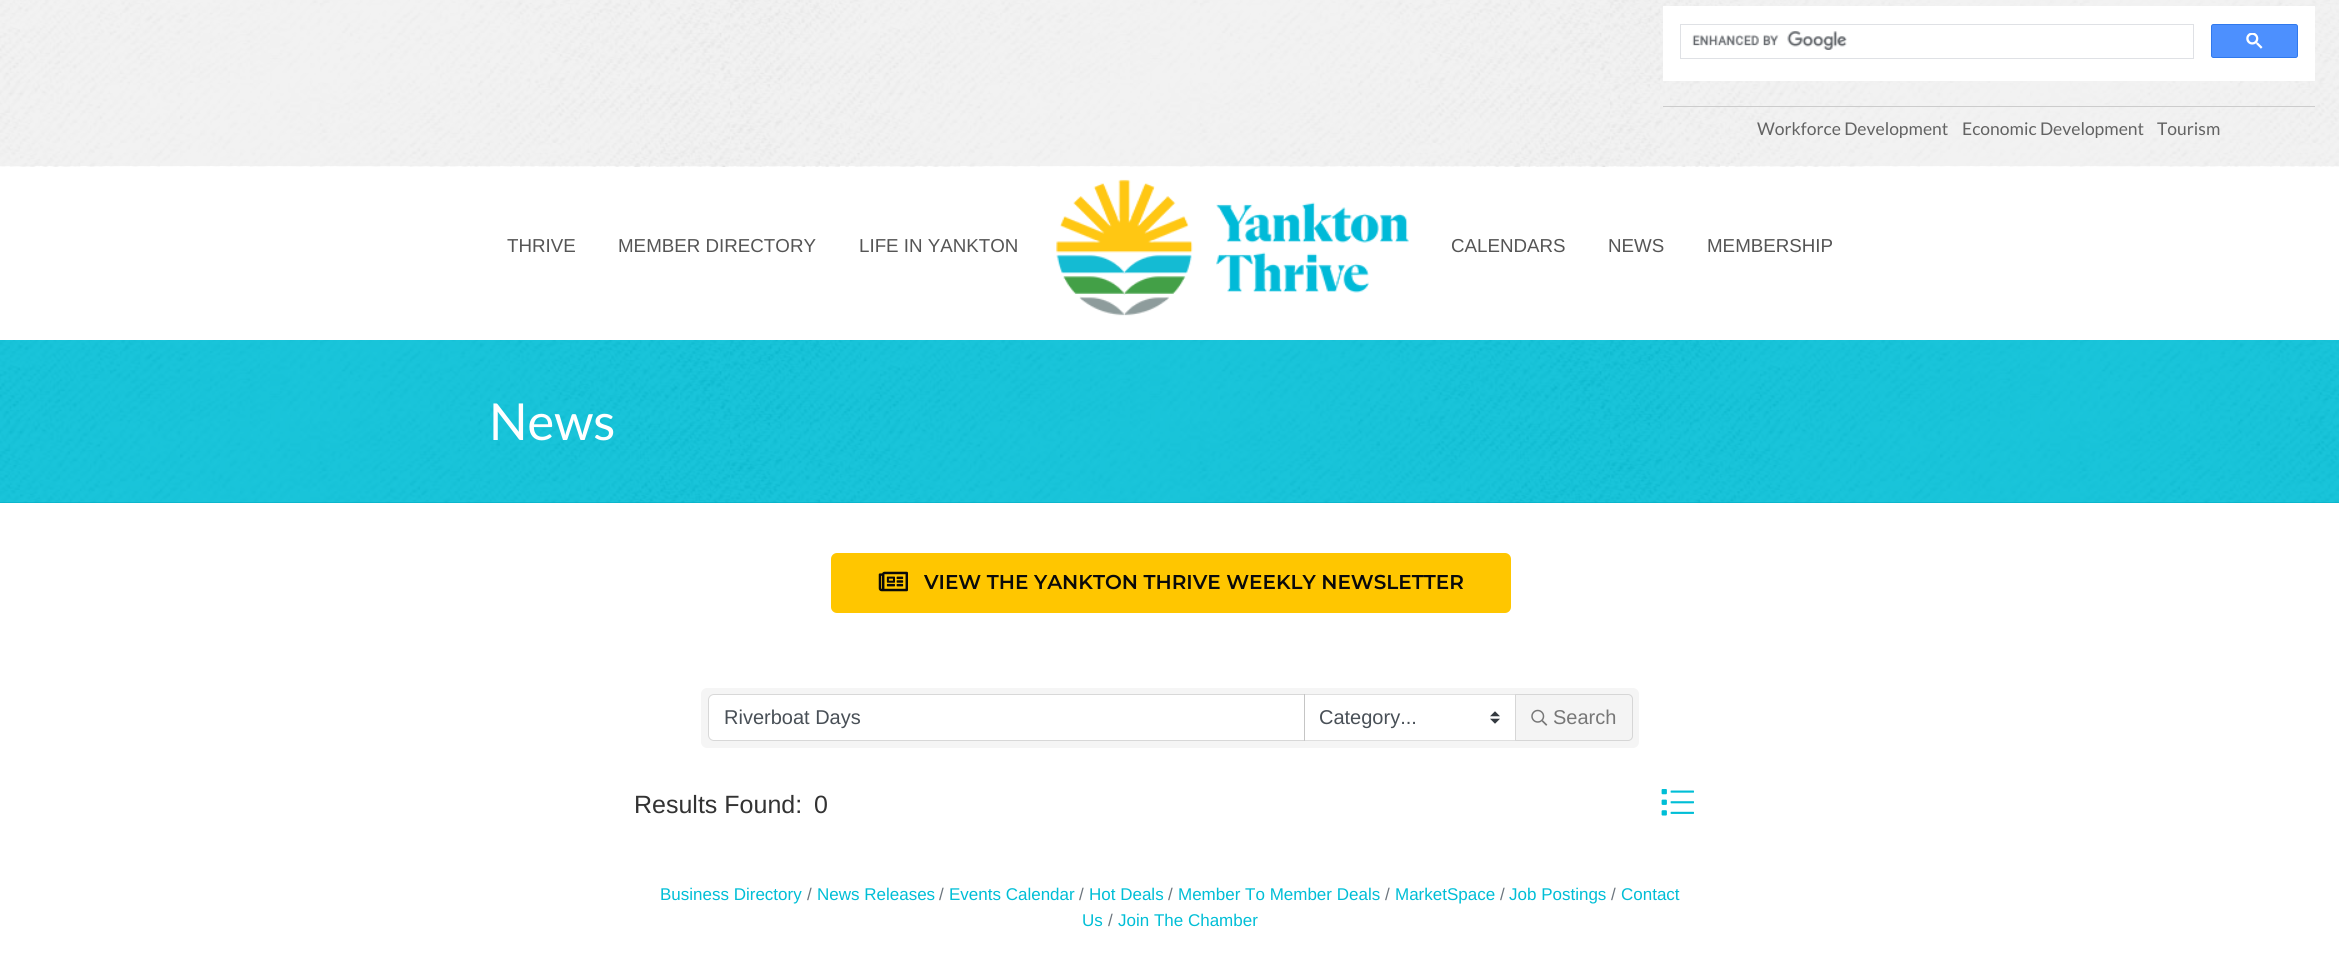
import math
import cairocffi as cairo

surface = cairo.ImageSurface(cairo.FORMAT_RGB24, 2339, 956)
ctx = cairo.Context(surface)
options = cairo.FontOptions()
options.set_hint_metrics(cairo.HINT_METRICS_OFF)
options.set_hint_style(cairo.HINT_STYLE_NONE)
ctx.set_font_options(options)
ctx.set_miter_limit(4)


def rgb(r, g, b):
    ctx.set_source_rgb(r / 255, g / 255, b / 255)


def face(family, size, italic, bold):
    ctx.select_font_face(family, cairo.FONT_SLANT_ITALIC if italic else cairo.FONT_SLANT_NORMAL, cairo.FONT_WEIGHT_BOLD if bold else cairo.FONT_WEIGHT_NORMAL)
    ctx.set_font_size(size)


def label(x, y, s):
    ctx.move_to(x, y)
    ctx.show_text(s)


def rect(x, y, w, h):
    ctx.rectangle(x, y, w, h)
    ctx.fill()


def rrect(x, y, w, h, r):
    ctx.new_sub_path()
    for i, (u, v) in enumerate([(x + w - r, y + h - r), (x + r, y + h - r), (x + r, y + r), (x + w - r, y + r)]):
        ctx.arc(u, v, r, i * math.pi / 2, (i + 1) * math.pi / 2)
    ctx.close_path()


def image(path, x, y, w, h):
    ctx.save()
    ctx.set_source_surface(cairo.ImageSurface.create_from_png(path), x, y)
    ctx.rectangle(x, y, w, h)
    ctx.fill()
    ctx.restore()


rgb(255, 255, 255)
ctx.paint()
image('image0.png', 0, 0, 2339, 167)
rgb(255, 255, 255)
rect(1663, 6, 652, 75)
ctx.rectangle(1680.5, 24.5, 513, 34)
rgb(223, 225, 229)
ctx.set_line_width(1)
ctx.stroke()
image('image1.png', 1692, 31, 155, 19)
rgb(77, 144, 254)
rrect(2211.5, 24.5, 86, 33, 2)
ctx.fill_preserve()
rgb(48, 121, 237)
ctx.stroke()
image('image2.png', 2246, 33, 17, 16)
rgb(204, 204, 204)
rect(1663, 106, 652, 1)
face('Lato', 17.5, 0, 0)
rgb(99, 99, 99)
label(1757, 135, 'Workforce Development')
label(1962, 135, 'Economic Development')
label(2157, 135, 'Tourism')
face('Liberation Sans', 18.75, 0, 0)
rgb(85, 85, 85)
label(507, 252, 'THRIVE')
label(618, 252, 'MEMBER DIRECTORY')
label(859, 252, 'LIFE IN YANKTON')
image('image3.png', 1056, 179, 353, 137)
label(1451, 252, 'CALENDARS')
label(1608, 252, 'NEWS')
label(1707, 252, 'MEMBERSHIP')
rgb(0, 171, 193)
rect(0, 502, 2339, 1)
image('image4.png', 0, 340, 2339, 163)
face('Lato', 51, 0, 0)
rgb(255, 255, 255)
label(489, 440, 'News')
rgb(255, 198, 0)
rrect(831, 553, 680, 60, 6)
ctx.fill()
image('image5.png', 878, 571, 30, 21)
face('Montserrat SemiBold', 20, 0, 0)
rgb(10, 10, 10)
label(924, 589, 'VIEW THE YANKTON THRIVE WEEKLY NEWSLETTER')
rgb(245, 245, 245)
rrect(701, 688, 938, 60, 6)
ctx.fill()
rgb(255, 255, 255)
ctx.new_path()
ctx.move_to(714, 695)
ctx.line_to(1304, 695)
ctx.line_to(1304, 740)
ctx.line_to(714, 740)
ctx.curve_to(711, 740, 709, 738, 709, 735)
ctx.line_to(709, 700)
ctx.curve_to(709, 697, 711, 695, 714, 695)
ctx.close_path()
ctx.fill()
rect(1305, 695, 210, 45)
image('image6.png', 1490, 711, 10, 13)
ctx.rectangle(1304.5, 694.5, 211, 46)
rgb(223, 223, 223)
ctx.stroke()
ctx.new_path()
ctx.move_to(714, 694.5)
ctx.line_to(1304.5, 694.5)
ctx.line_to(1304.5, 740.5)
ctx.line_to(714, 740.5)
ctx.curve_to(711, 740.5, 708.5, 738, 708.5, 735)
ctx.line_to(708.5, 700)
ctx.curve_to(708.5, 697, 711, 694.5, 714, 694.5)
ctx.close_path()
ctx.set_source_rgba(0, 0, 0, 0.12)
ctx.stroke()
face('Liberation Sans', 20, 0, 0)
rgb(73, 80, 87)
label(724, 724, 'Riverboat Days')
label(1319, 724, 'Category...')
rgb(244, 244, 244)
ctx.new_path()
ctx.move_to(1515.5, 694.5)
ctx.line_to(1628, 694.5)
ctx.curve_to(1630.5, 694.5, 1632.5, 696.5, 1632.5, 699)
ctx.line_to(1632.5, 736)
ctx.curve_to(1632.5, 738.5, 1630.5, 740.5, 1628, 740.5)
ctx.line_to(1515.5, 740.5)
ctx.close_path()
ctx.fill_preserve()
rgb(214, 214, 214)
ctx.stroke()
image('image7.png', 1531, 709, 17, 17)
rgb(119, 119, 119)
label(1553, 724, 'Search')
face('Liberation Sans', 25, 0, 0)
rgb(51, 51, 51)
label(634, 813, 'Results Found:')
label(814, 813, '0')
image('image8.png', 1661, 789, 33, 27)
face('Liberation Sans', 17, 0, 0)
rgb(0, 190, 214)
label(660, 900, 'Business Directory')
rgb(108, 117, 125)
label(807, 900, '/')
rgb(0, 190, 214)
label(817, 900, 'News Releases')
rgb(108, 117, 125)
label(939, 900, '/')
rgb(0, 190, 214)
label(949, 900, 'Events Calendar')
rgb(108, 117, 125)
label(1079, 900, '/')
rgb(0, 190, 214)
label(1089, 900, 'Hot Deals')
rgb(108, 117, 125)
label(1611, 900, '/')
rgb(0, 190, 214)
label(1621, 900, 'Contact')
label(1082, 926, 'Us')
rgb(108, 117, 125)
label(1168, 900, '/')
rgb(0, 190, 214)
label(1178, 900, 'Member To Member Deals')
rgb(108, 117, 125)
label(1385, 900, '/')
rgb(0, 190, 214)
label(1395, 900, 'MarketSpace')
rgb(108, 117, 125)
label(1500, 900, '/')
rgb(0, 190, 214)
label(1509, 900, 'Job Postings')
rgb(108, 117, 125)
label(1108, 926, '/')
rgb(0, 190, 214)
label(1118, 926, 'Join The Chamber')
surface.write_to_png('render.png')
